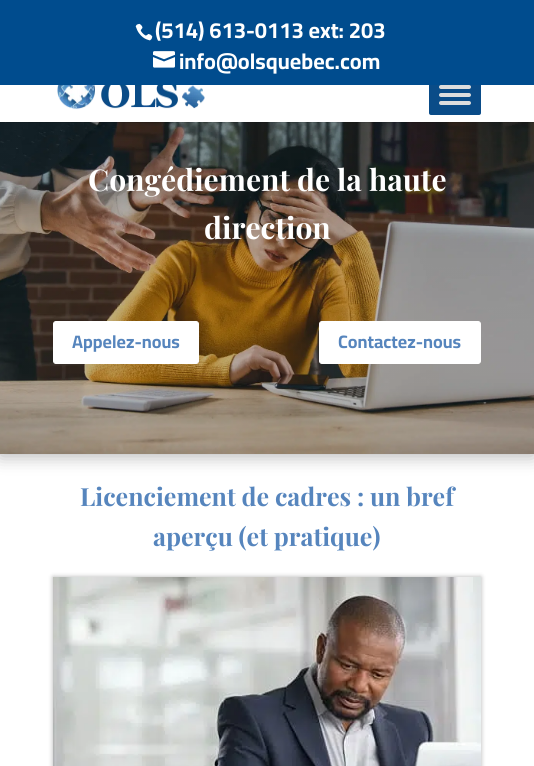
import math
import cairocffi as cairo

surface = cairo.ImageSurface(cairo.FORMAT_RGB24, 534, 766)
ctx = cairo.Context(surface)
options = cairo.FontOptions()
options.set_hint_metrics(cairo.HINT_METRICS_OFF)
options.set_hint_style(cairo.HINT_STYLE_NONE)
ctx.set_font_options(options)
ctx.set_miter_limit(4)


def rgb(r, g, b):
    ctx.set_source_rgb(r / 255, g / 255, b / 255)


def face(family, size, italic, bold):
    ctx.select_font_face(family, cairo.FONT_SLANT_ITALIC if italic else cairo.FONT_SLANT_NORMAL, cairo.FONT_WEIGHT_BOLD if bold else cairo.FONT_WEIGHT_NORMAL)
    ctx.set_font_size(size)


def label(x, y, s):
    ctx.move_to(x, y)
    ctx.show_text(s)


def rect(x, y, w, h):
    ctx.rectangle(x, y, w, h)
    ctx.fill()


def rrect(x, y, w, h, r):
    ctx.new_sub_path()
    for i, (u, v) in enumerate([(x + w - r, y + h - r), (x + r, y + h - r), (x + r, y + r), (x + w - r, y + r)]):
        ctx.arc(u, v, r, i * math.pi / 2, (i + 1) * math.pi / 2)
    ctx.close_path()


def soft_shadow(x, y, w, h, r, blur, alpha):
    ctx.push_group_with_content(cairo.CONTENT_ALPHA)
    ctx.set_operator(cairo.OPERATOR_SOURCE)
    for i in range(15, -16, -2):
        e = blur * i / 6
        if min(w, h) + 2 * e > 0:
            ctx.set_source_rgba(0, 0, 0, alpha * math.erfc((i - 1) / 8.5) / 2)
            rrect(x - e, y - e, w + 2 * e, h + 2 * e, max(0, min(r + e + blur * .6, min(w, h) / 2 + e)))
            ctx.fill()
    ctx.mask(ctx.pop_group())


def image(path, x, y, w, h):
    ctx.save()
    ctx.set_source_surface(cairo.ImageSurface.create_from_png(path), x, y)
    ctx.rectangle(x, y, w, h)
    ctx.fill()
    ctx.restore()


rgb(255, 255, 255)
ctx.paint()
rgb(0, 0, 0)
soft_shadow(0, 82, 534, 374, 0, 9, 0.3)
rgb(255, 255, 255)
rect(0, 85, 534, 37)
rgb(10, 76, 136)
rrect(429, 75, 52, 40, 2)
ctx.fill()
rgb(0, 76, 142)
rect(0, 0, 534, 85)
image('image0.png', 135, 23, 18, 18)
face('Cairo', 22, 0, 1)
rgb(255, 255, 255)
label(155, 38, '(514) 613-0113 ext: 203')
image('image1.png', 153, 51, 22, 17)
label(179, 69, 'info@olsquebec.com')
image('image3.png', 0, 122, 534, 332)
ctx.set_source_rgba(0, 0, 0, 0.1)
rect(0, 122, 534, 1)
image('image2.png', 57, 85, 148, 25)
rgb(221, 221, 221)
rrect(439, 85, 32, 4, 2)
ctx.fill()
rrect(439, 93, 32, 4, 2)
ctx.fill()
rrect(439, 101, 32, 4, 2)
ctx.fill()
face('Playfair Display', 30, 0, 1)
rgb(255, 255, 255)
label(88, 191, 'Congédiement de la haute')
label(204, 239, 'direction')
rrect(53.5, 321.5, 145, 42, 2.5)
ctx.fill_preserve()
ctx.set_line_width(1)
ctx.stroke()
face('Cairo', 18, 0, 1)
rgb(86, 133, 189)
label(72, 348, 'Appelez-nous')
rgb(255, 255, 255)
rrect(319.5, 321.5, 161, 42, 2.5)
ctx.fill_preserve()
ctx.stroke()
rgb(86, 133, 189)
label(338, 348, 'Contactez-nous')
face('Playfair Display', 25, 0, 1)
label(80, 506, 'Licenciement de cadres : un bref')
label(153, 546, 'aperçu (et pratique)')
rgb(0, 0, 0)
soft_shadow(53, 577, 428, 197, 0, 2.5, 0.3)
image('image4.png', 53, 577, 428, 189)
surface.write_to_png('render.png')
